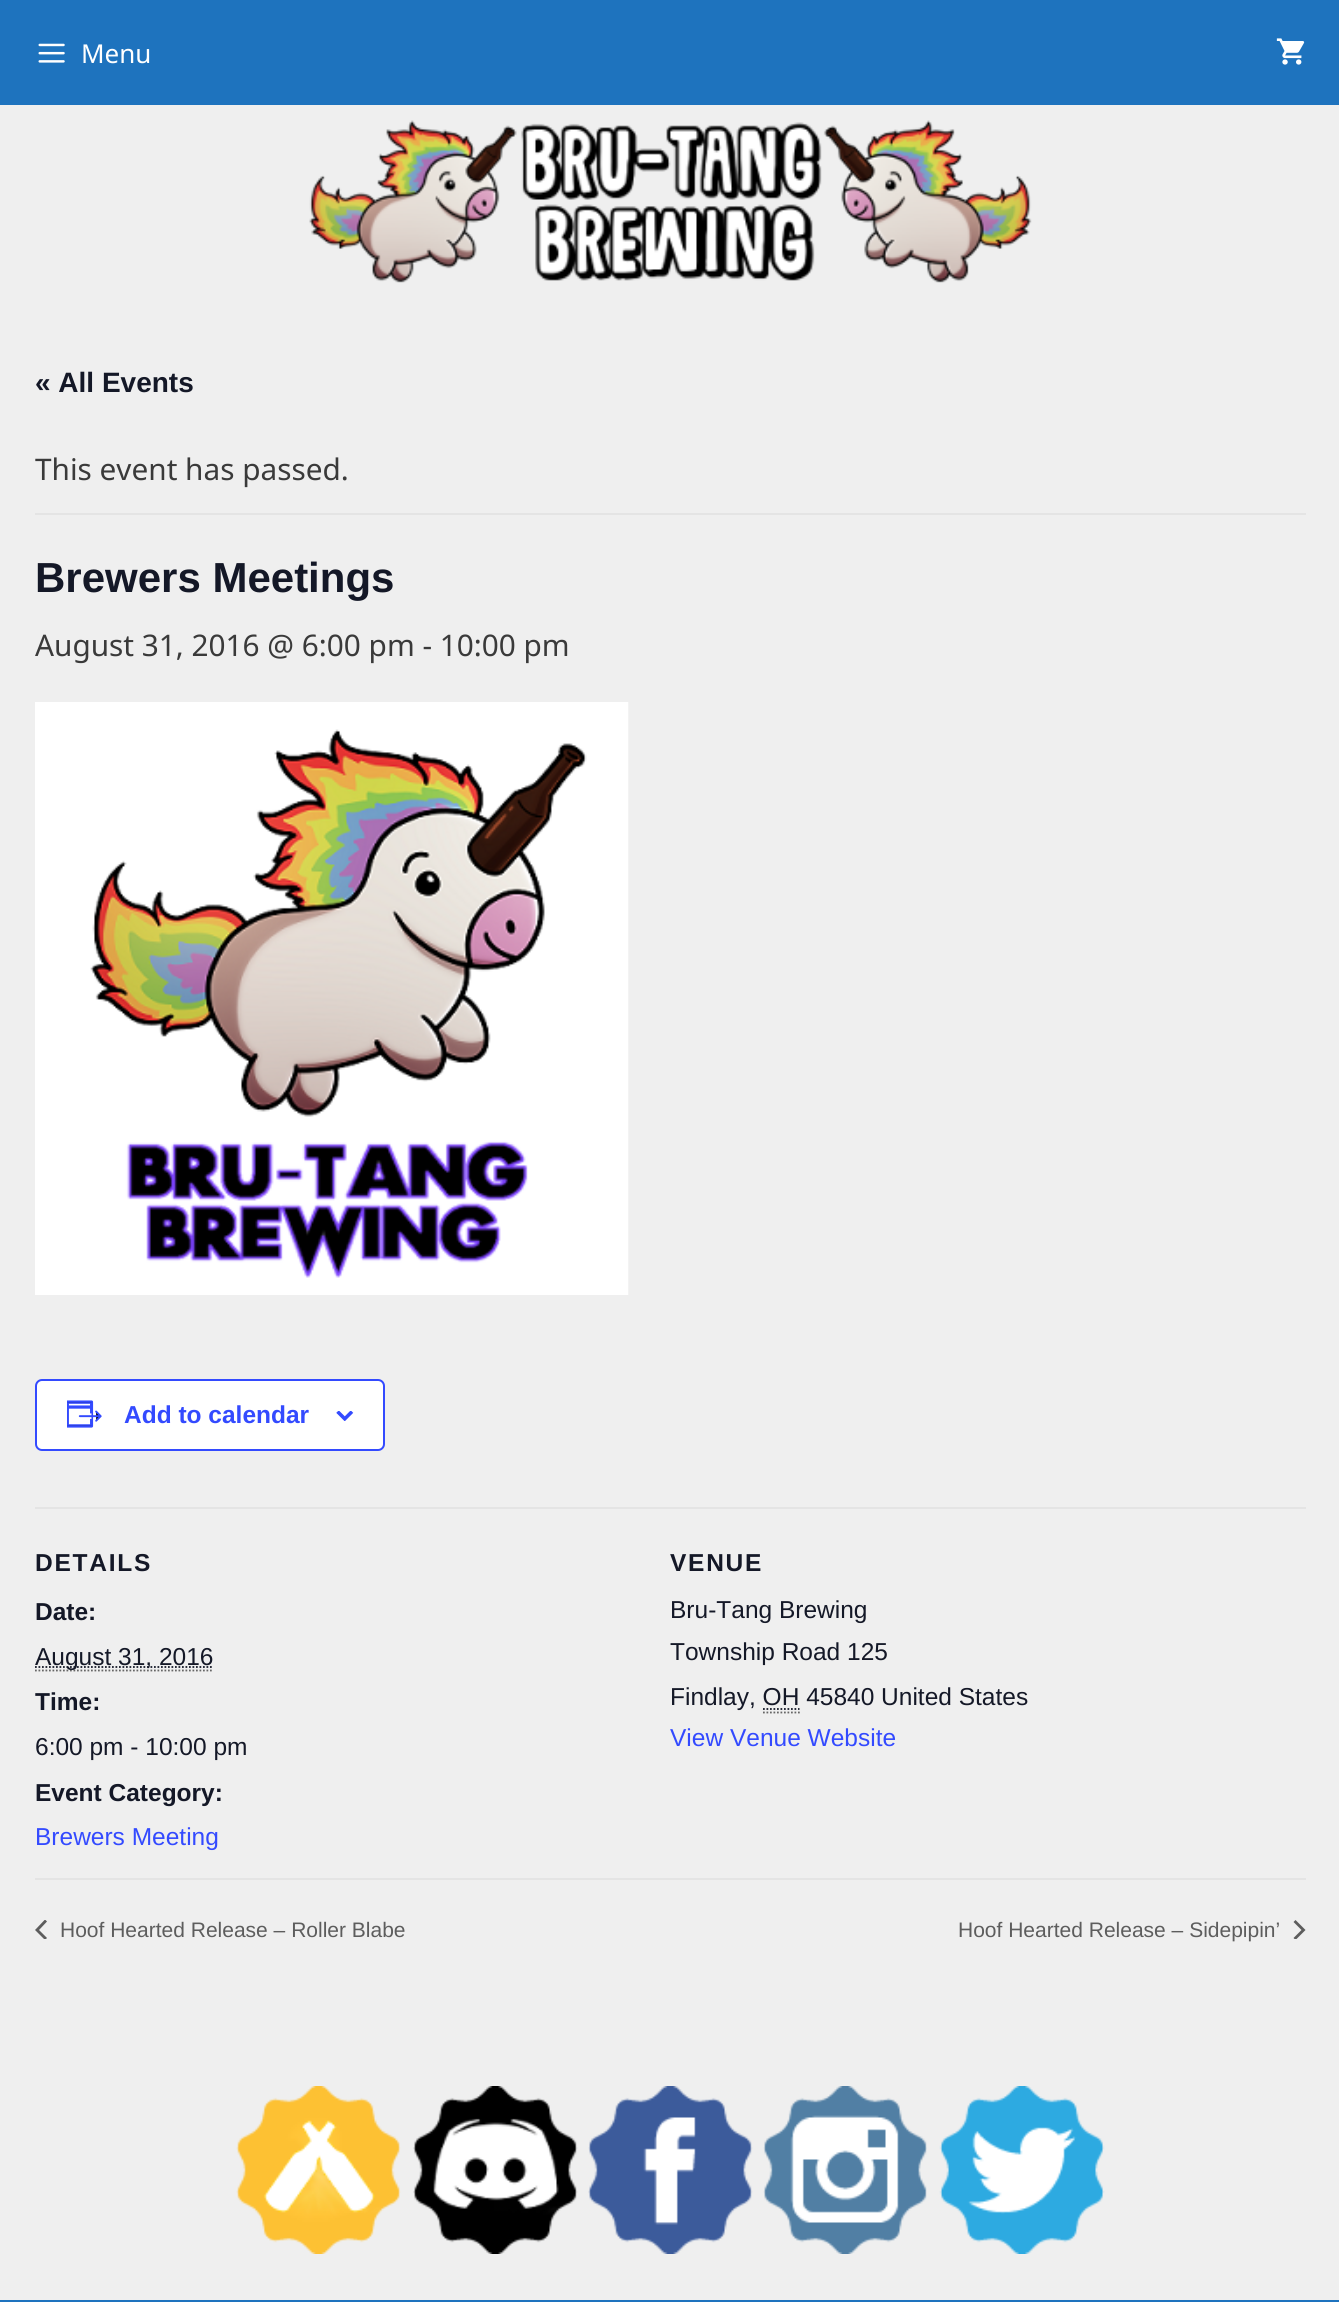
import math
import cairocffi as cairo

surface = cairo.ImageSurface(cairo.FORMAT_RGB24, 1339, 2302)
ctx = cairo.Context(surface)
options = cairo.FontOptions()
options.set_hint_metrics(cairo.HINT_METRICS_OFF)
options.set_hint_style(cairo.HINT_STYLE_NONE)
ctx.set_font_options(options)
ctx.set_miter_limit(4)


def rgb(r, g, b):
    ctx.set_source_rgb(r / 255, g / 255, b / 255)


def face(family, size, italic, bold):
    ctx.select_font_face(family, cairo.FONT_SLANT_ITALIC if italic else cairo.FONT_SLANT_NORMAL, cairo.FONT_WEIGHT_BOLD if bold else cairo.FONT_WEIGHT_NORMAL)
    ctx.set_font_size(size)


def label(x, y, s):
    ctx.move_to(x, y)
    ctx.show_text(s)


def tracked(x, y, s, letter, word):
    ctx.move_to(x, y)
    for ch in s:
        ctx.show_text(ch)
        ctx.rel_move_to(letter + word * (ch == ' '), 0)


def rect(x, y, w, h):
    ctx.rectangle(x, y, w, h)
    ctx.fill()


def rrect(x, y, w, h, r):
    ctx.new_sub_path()
    for i, (u, v) in enumerate([(x + w - r, y + h - r), (x + r, y + h - r), (x + r, y + r), (x + w - r, y + r)]):
        ctx.arc(u, v, r, i * math.pi / 2, (i + 1) * math.pi / 2)
    ctx.close_path()


def image(path, x, y, w, h):
    ctx.save()
    ctx.set_source_surface(cairo.ImageSurface.create_from_png(path), x, y)
    ctx.rectangle(x, y, w, h)
    ctx.fill()
    ctx.restore()


rgb(239, 239, 239)
ctx.paint()
rgb(30, 115, 190)
rect(0, 0, 1339, 105)
image('image0.png', 38, 43, 27, 20)
face('Noto Sans', 26, 0, 0)
rgb(255, 255, 255)
label(81, 63, 'Menu')
image('image1.png', 1276, 38, 29, 27)
image('image2.png', 309, 120, 723, 163)
face('Liberation Sans', 28, 0, 1)
rgb(20, 24, 39)
label(35, 392, '« All Events')
rgb(228, 228, 228)
rect(35, 513, 1271, 2)
face('Noto Sans', 29.75, 0, 0)
rgb(58, 58, 58)
label(35, 480, 'This event has passed.')
face('Liberation Sans', 42, 0, 1)
rgb(20, 24, 39)
label(35, 592, 'Brewers Meetings')
face('Noto Sans', 29.75, 0, 0)
rgb(58, 58, 58)
label(35, 656, 'August 31, 2016 @ 6:00 pm - 10:00 pm')
image('image3.png', 35, 702, 594, 593)
rgb(255, 255, 255)
rrect(36, 1380, 348, 70, 6)
ctx.fill_preserve()
rgb(51, 74, 255)
ctx.stroke()
image('image4.png', 67, 1400, 35, 28)
face('Liberation Sans', 24.5, 0, 1)
label(124, 1423, 'Add to calendar')
image('image5.png', 336, 1411, 18, 10)
rgb(228, 228, 228)
rect(35, 1507, 1271, 2)
rgb(20, 24, 39)
tracked(35, 1571, 'DETAILS', 1.75, 0)
label(35, 1620, 'Date:')
ctx.new_path()
ctx.move_to(35, 1670.5)
ctx.line_to(213.5, 1670.5)
rgb(102, 102, 102)
ctx.set_line_width(1.8)
ctx.set_dash([1.75, 1.75])
ctx.stroke()
ctx.new_path()
ctx.move_to(35, 1667)
ctx.line_to(213.5, 1667)
rgb(20, 24, 39)
ctx.stroke()
face('Liberation Sans', 24.5, 0, 0)
label(35, 1665, 'August 31, 2016')
face('Liberation Sans', 24.5, 0, 1)
label(35, 1710, 'Time:')
face('Liberation Sans', 24.5, 0, 0)
label(35, 1755, '6:00 pm - 10:00 pm')
face('Liberation Sans', 24.5, 0, 1)
label(35, 1801, 'Event Category:')
face('Liberation Sans', 24.5, 0, 0)
rgb(51, 74, 255)
label(35, 1845, 'Brewers Meeting')
face('Liberation Sans', 24.5, 0, 1)
rgb(20, 24, 39)
tracked(670, 1571, 'VENUE', 1.75, 0)
face('Liberation Sans', 24.5, 0, 0)
label(670, 1618, 'Bru-Tang Brewing')
label(670, 1660, 'Township Road 125')
label(670, 1705, 'Findlay, OH 45840 United States')
ctx.new_path()
ctx.move_to(763, 1712.5)
ctx.line_to(800, 1712.5)
rgb(102, 102, 102)
ctx.stroke()
ctx.new_path()
ctx.move_to(763, 1709)
ctx.line_to(799.5, 1709)
rgb(20, 24, 39)
ctx.stroke()
rgb(51, 74, 255)
label(670, 1746, 'View Venue Website')
rgb(228, 228, 228)
rect(35, 1878, 1271, 2)
ctx.save()
ctx.rectangle(35, 1920, 12, 19)
ctx.clip()
rgb(93, 93, 93)
ctx.new_path()
ctx.move_to(47, 1938)
ctx.line_to(45, 1940)
ctx.line_to(35, 1930)
ctx.line_to(45, 1919.5)
ctx.line_to(47, 1921.5)
ctx.line_to(39, 1930)
ctx.close_path()
ctx.fill()
ctx.restore()
face('Liberation Sans', 21, 0, 0)
rgb(93, 93, 93)
label(60, 1937, 'Hoof Hearted Release – Roller Blabe')
label(958, 1937, 'Hoof Hearted Release – Sidepipin’')
ctx.save()
ctx.rectangle(1293, 1920, 13, 19)
ctx.clip()
ctx.new_path()
ctx.move_to(1293.5, 1922)
ctx.line_to(1295.5, 1920)
ctx.line_to(1305.5, 1930)
ctx.line_to(1295.5, 1940)
ctx.line_to(1293.5, 1938)
ctx.line_to(1301.5, 1930)
ctx.close_path()
ctx.fill()
ctx.restore()
image('image6.png', 236, 2086, 165, 168)
image('image7.png', 413, 2086, 165, 168)
image('image8.png', 588, 2086, 165, 168)
image('image9.png', 763, 2086, 164, 168)
image('image10.png', 939, 2086, 166, 168)
rgb(30, 115, 190)
rect(0, 2300, 1339, 2)
surface.write_to_png('render.png')
